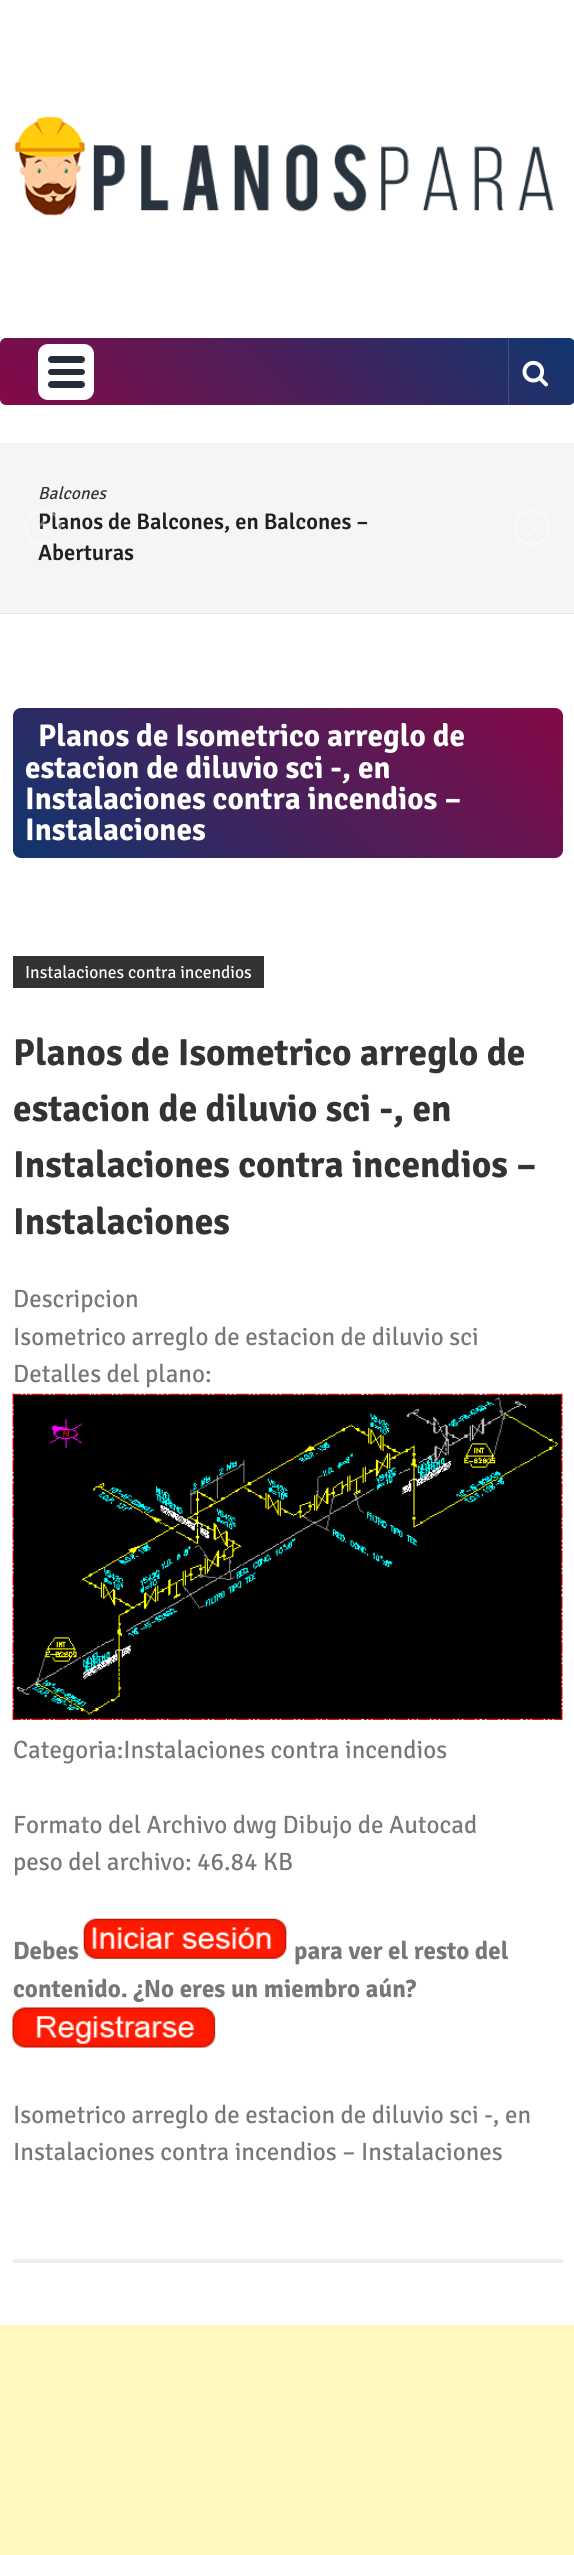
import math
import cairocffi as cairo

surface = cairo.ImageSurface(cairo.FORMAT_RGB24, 574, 2555)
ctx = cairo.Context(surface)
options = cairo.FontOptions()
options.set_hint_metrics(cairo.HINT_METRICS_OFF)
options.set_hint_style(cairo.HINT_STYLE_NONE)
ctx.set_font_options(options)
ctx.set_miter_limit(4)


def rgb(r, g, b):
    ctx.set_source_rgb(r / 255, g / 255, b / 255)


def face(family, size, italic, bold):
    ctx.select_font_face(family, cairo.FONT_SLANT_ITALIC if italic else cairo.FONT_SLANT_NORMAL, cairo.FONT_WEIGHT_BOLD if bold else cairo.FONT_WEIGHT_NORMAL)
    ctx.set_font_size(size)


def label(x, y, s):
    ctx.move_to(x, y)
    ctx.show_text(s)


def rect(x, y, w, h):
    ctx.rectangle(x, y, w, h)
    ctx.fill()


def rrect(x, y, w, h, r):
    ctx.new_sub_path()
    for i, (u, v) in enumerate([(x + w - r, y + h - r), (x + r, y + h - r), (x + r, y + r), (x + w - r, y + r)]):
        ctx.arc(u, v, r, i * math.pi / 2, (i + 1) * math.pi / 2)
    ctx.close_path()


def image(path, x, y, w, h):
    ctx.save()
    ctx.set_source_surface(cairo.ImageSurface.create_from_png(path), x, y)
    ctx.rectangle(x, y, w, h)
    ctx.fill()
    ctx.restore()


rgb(255, 255, 255)
ctx.paint()
image('image0.png', 14, 116, 540, 100)
gradient = cairo.LinearGradient(127, 532, 448, 211)
gradient.add_color_stop_rgba(0, 0.522, 0.035, 0.278, 1)
gradient.add_color_stop_rgba(1, 0.063, 0.212, 0.431, 1)
ctx.set_source(gradient)
rrect(0, 338, 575, 67, 6)
ctx.fill()
gradient = cairo.LinearGradient(127, 532, 448, 211)
gradient.add_color_stop_rgba(0, 0.592, 0.18, 0.388, 1)
gradient.add_color_stop_rgba(1, 0.204, 0.329, 0.518, 1)
ctx.set_source(gradient)
rect(508, 338, 1, 67)
rgb(255, 255, 255)
rrect(38, 344, 56, 56, 10)
ctx.fill()
rgb(38, 44, 60)
rrect(48, 356, 37, 7, 3.5)
ctx.fill()
rrect(48, 369, 37, 6, 3)
ctx.fill()
rrect(48, 381, 37, 7, 3.5)
ctx.fill()
image('image1.png', 522, 360, 26, 27)
rgb(245, 245, 245)
rect(0, 443, 574, 170)
rgb(229, 229, 229)
rect(0, 613, 574, 1)
face('Signika Negative', 17.5, 1, 0)
rgb(51, 51, 51)
label(38, 499, 'Balcones')
face('Signika Negative SemiBold', 22.5, 0, 0)
rgb(35, 31, 32)
label(38, 529, 'Planos de Balcones, en Balcones –')
label(38, 560, 'Aberturas')
image('image2.png', 25, 510, 37, 36)
image('image3.png', 514, 510, 36, 35)
gradient = cairo.LinearGradient(113, 958, 463, 608)
gradient.add_color_stop_rgba(0, 0.063, 0.212, 0.431, 1)
gradient.add_color_stop_rgba(1, 0.522, 0.035, 0.278, 1)
ctx.set_source(gradient)
rrect(13, 708, 550, 150, 8)
ctx.fill()
face('Signika Negative', 31.25, 0, 1)
rgb(255, 255, 255)
label(38, 746, 'Planos de Isometrico arreglo de')
label(25, 778, 'estacion de diluvio sci -, en')
label(25, 809, 'Instalaciones contra incendios –')
label(25, 840, 'Instalaciones')
rgb(51, 51, 51)
rect(13, 956, 251, 32)
face('Signika Negative', 17.5, 0, 0)
rgb(255, 255, 255)
label(25, 978, 'Instalaciones contra incendios')
face('Signika Negative', 37.5, 0, 1)
rgb(51, 51, 51)
label(13, 1065, 'Planos de Isometrico arreglo de')
label(13, 1121, 'estacion de diluvio sci -, en')
label(13, 1177, 'Instalaciones contra incendios –')
label(13, 1234, 'Instalaciones')
face('Signika Negative', 25, 0, 0)
rgb(119, 119, 119)
label(13, 1307, 'Descripcion')
label(13, 1345, 'Isometrico arreglo de estacion de diluvio sci')
label(13, 1382, 'Detalles del plano:')
image('image4.png', 12, 1393, 551, 327)
label(13, 1758, 'Categoria:Instalaciones contra incendios')
label(13, 1833, 'Formato del Archivo dwg Dibujo de Autocad')
label(13, 1870, 'peso del archivo: 46.84 KB')
face('Signika Negative', 25, 0, 1)
label(13, 1959, 'Debes')
image('image5.png', 83, 1918, 204, 41)
label(294, 1959, 'para ver el resto del')
label(13, 1997, 'contenido. ¿No eres un miembro aún?')
image('image6.png', 12, 2007, 204, 41)
face('Signika Negative', 25, 0, 0)
label(13, 2123, 'Isometrico arreglo de estacion de diluvio sci -, en')
label(13, 2160, 'Instalaciones contra incendios – Instalaciones')
rgb(238, 238, 238)
rect(13, 2259, 550, 4)
rgb(255, 249, 192)
rect(0, 2325, 574, 230)
surface.write_to_png('render.png')
